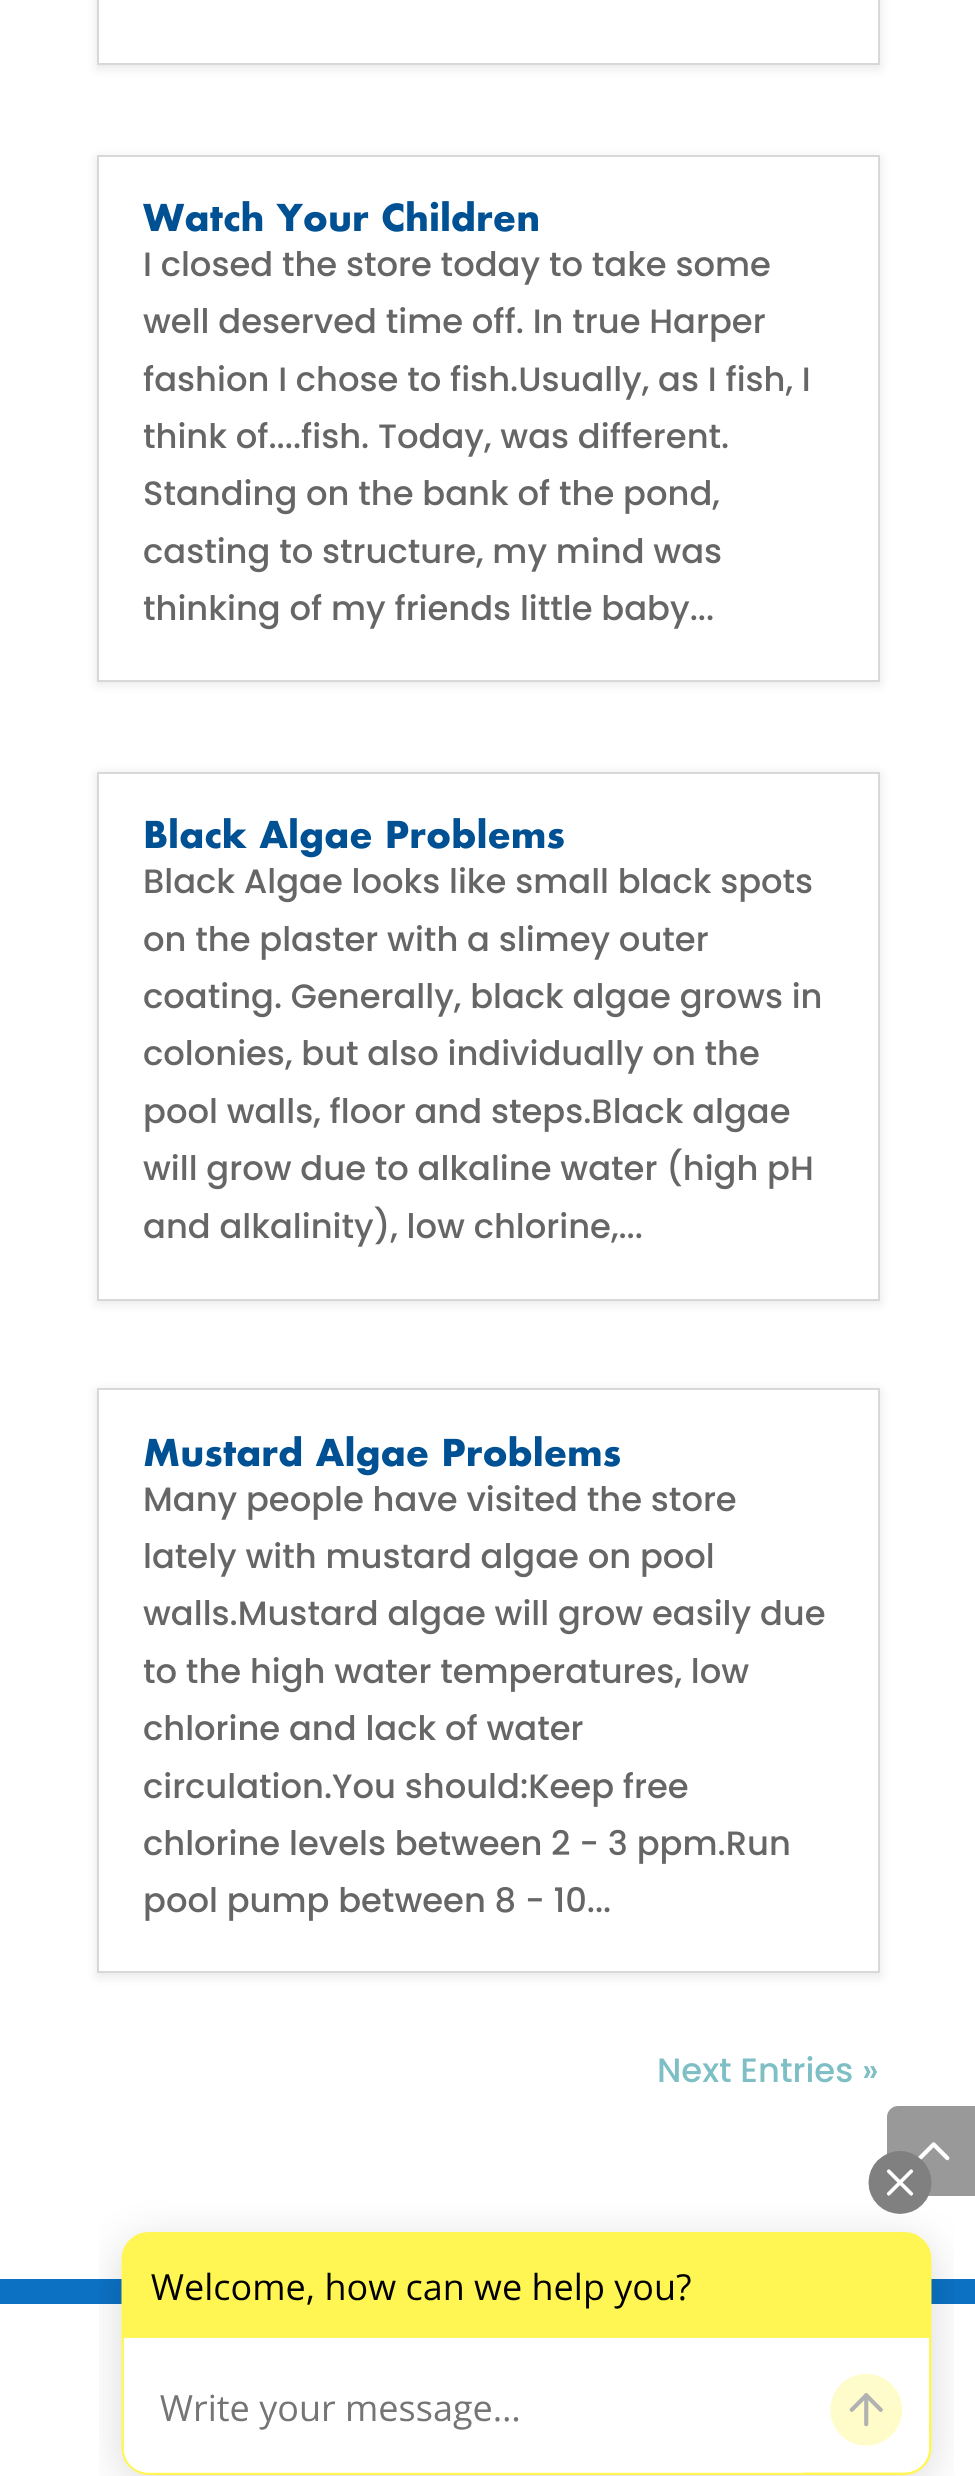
import math
import cairocffi as cairo

surface = cairo.ImageSurface(cairo.FORMAT_RGB24, 975, 2476)
ctx = cairo.Context(surface)
options = cairo.FontOptions()
options.set_hint_metrics(cairo.HINT_METRICS_OFF)
options.set_hint_style(cairo.HINT_STYLE_NONE)
ctx.set_font_options(options)
ctx.set_miter_limit(4)


def rgb(r, g, b):
    ctx.set_source_rgb(r / 255, g / 255, b / 255)


def face(family, size, italic, bold):
    ctx.select_font_face(family, cairo.FONT_SLANT_ITALIC if italic else cairo.FONT_SLANT_NORMAL, cairo.FONT_WEIGHT_BOLD if bold else cairo.FONT_WEIGHT_NORMAL)
    ctx.set_font_size(size)


def label(x, y, s):
    ctx.move_to(x, y)
    ctx.show_text(s)


def rect(x, y, w, h):
    ctx.rectangle(x, y, w, h)
    ctx.fill()


def rrect(x, y, w, h, r):
    ctx.new_sub_path()
    for i, (u, v) in enumerate([(x + w - r, y + h - r), (x + r, y + h - r), (x + r, y + r), (x + w - r, y + r)]):
        ctx.arc(u, v, r, i * math.pi / 2, (i + 1) * math.pi / 2)
    ctx.close_path()


def soft_shadow(x, y, w, h, r, blur, alpha):
    ctx.push_group_with_content(cairo.CONTENT_ALPHA)
    ctx.set_operator(cairo.OPERATOR_SOURCE)
    for i in range(15, -16, -2):
        e = blur * i / 6
        if min(w, h) + 2 * e > 0:
            ctx.set_source_rgba(0, 0, 0, alpha * math.erfc((i - 1) / 8.5) / 2)
            rrect(x - e, y - e, w + 2 * e, h + 2 * e, max(0, min(r + e + blur * .6, min(w, h) / 2 + e)))
            ctx.fill()
    ctx.mask(ctx.pop_group())


def image(path, x, y, w, h):
    ctx.save()
    ctx.set_source_surface(cairo.ImageSurface.create_from_png(path), x, y)
    ctx.rectangle(x, y, w, h)
    ctx.fill()
    ctx.restore()


rgb(255, 255, 255)
ctx.paint()
rgb(0, 0, 0)
soft_shadow(97, -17, 783, 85, 0, 5.5, 0.1)
rgb(255, 255, 255)
ctx.rectangle(98, -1, 781, 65)
ctx.fill_preserve()
rgb(216, 216, 216)
ctx.stroke()
rgb(0, 0, 0)
soft_shadow(97, 158, 783, 526, 0, 5.5, 0.1)
rgb(255, 255, 255)
ctx.rectangle(98, 156, 781, 525)
ctx.fill_preserve()
rgb(216, 216, 216)
ctx.stroke()
face('Futura', 36, 0, 1)
rgb(0, 80, 148)
label(143, 231, 'Watch Your Children')
face('Poppins Medium', 33.75, 0, 0)
rgb(102, 102, 102)
label(143, 276, 'I closed the store today to take some')
label(143, 333, 'well deserved time off. In true Harper')
label(143, 391, 'fashion I chose to fish.Usually, as I fish, I')
label(143, 448, 'think of....fish. Today, was different.')
label(143, 505, 'Standing on the bank of the pond,')
label(143, 563, 'casting to structure, my mind was')
label(143, 620, 'thinking of my friends little baby...')
rgb(0, 0, 0)
soft_shadow(97, 774, 783, 529, 0, 5.5, 0.1)
rgb(255, 255, 255)
ctx.rectangle(98, 773, 781, 527)
ctx.fill_preserve()
rgb(216, 216, 216)
ctx.stroke()
face('Futura', 36, 0, 1)
rgb(0, 80, 148)
label(143, 848, 'Black Algae Problems')
face('Poppins Medium', 33.75, 0, 0)
rgb(102, 102, 102)
label(143, 893, 'Black Algae looks like small black spots')
label(143, 951, 'on the plaster with a slimey outer')
label(143, 1008, 'coating. Generally, black algae grows in')
label(143, 1065, 'colonies, but also individually on the')
label(143, 1123, 'pool walls, floor and steps.Black algae')
label(143, 1180, 'will grow due to alkaline water (high pH')
label(143, 1238, 'and alkalinity), low chlorine,...')
rgb(0, 0, 0)
soft_shadow(97, 1391, 783, 585, 0, 5.5, 0.1)
rgb(255, 255, 255)
ctx.rectangle(98, 1389, 781, 583)
ctx.fill_preserve()
rgb(216, 216, 216)
ctx.stroke()
face('Futura', 36, 0, 1)
rgb(0, 80, 148)
label(143, 1466, 'Mustard Algae Problems')
face('Poppins Medium', 33.75, 0, 0)
rgb(102, 102, 102)
label(143, 1511, 'Many people have visited the store')
label(143, 1568, 'lately with mustard algae on pool')
label(143, 1625, 'walls.Mustard algae will grow easily due')
label(143, 1683, 'to the high water temperatures, low')
label(143, 1740, 'chlorine and lack of water')
label(143, 1798, 'circulation.You should:Keep free')
label(143, 1855, 'chlorine levels between 2 - 3 ppm.Run')
label(143, 1912, 'pool pump between 8 - 10...')
rgb(126, 190, 197)
label(657, 2082, 'Next Entries »')
rgb(12, 113, 195)
rect(0, 2279, 975, 25)
rgb(153, 153, 153)
ctx.new_path()
ctx.move_to(898, 2106)
ctx.line_to(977, 2106)
ctx.line_to(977, 2196)
ctx.line_to(898, 2196)
ctx.curve_to(892, 2196, 887, 2191, 887, 2185)
ctx.line_to(887, 2117)
ctx.curve_to(887, 2111, 892, 2106, 898, 2106)
ctx.close_path()
ctx.fill()
image('image0.png', 918, 2142, 32, 19)
image('image1.png', 99, 2151, 855, 325)
surface.write_to_png('render.png')
